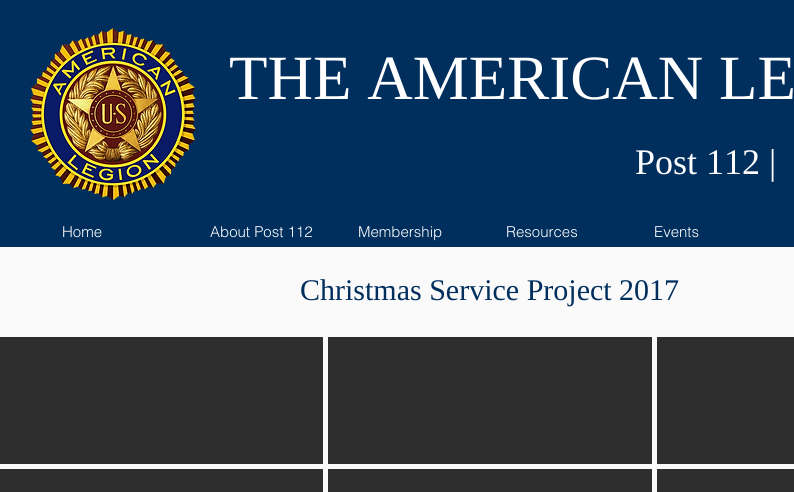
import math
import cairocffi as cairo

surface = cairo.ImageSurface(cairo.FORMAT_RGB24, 794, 492)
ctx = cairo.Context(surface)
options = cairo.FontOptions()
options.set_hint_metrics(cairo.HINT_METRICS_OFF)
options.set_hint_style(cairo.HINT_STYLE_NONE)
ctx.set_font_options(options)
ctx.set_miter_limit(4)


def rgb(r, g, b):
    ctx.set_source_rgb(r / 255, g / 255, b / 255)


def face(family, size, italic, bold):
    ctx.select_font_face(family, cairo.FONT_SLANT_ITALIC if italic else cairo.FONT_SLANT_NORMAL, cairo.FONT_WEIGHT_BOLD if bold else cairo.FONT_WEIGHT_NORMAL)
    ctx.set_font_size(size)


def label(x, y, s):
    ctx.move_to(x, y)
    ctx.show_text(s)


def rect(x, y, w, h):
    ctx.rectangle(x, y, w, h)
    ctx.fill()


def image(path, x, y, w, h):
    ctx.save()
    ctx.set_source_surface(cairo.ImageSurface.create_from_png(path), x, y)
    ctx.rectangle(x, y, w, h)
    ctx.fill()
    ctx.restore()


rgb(0, 46, 93)
ctx.paint()
image('image0.png', 30, 28, 166, 172)
face('Liberation Serif', 63, 0, 0)
rgb(255, 255, 255)
label(229, 99, 'THE AMERICAN LE')
face('Liberation Serif', 36, 0, 0)
label(635, 174, 'Post 112 |')
face('helvetica Light', 15, 0, 0)
label(62, 237, 'Home')
label(210, 237, 'About Post 112')
label(358, 237, 'Membership')
label(506, 237, 'Resources')
label(654, 237, 'Events')
rgb(250, 250, 250)
rect(0, 247, 794, 245)
rgb(47, 46, 46)
rect(0, 337, 323, 127)
rect(328, 337, 324, 127)
rect(657, 337, 137, 127)
rect(0, 469, 323, 23)
rect(328, 469, 324, 23)
rect(657, 469, 137, 23)
face('Liberation Serif', 30, 0, 0)
rgb(0, 46, 93)
label(300, 300, 'Christmas Service Project 2017')
surface.write_to_png('render.png')
